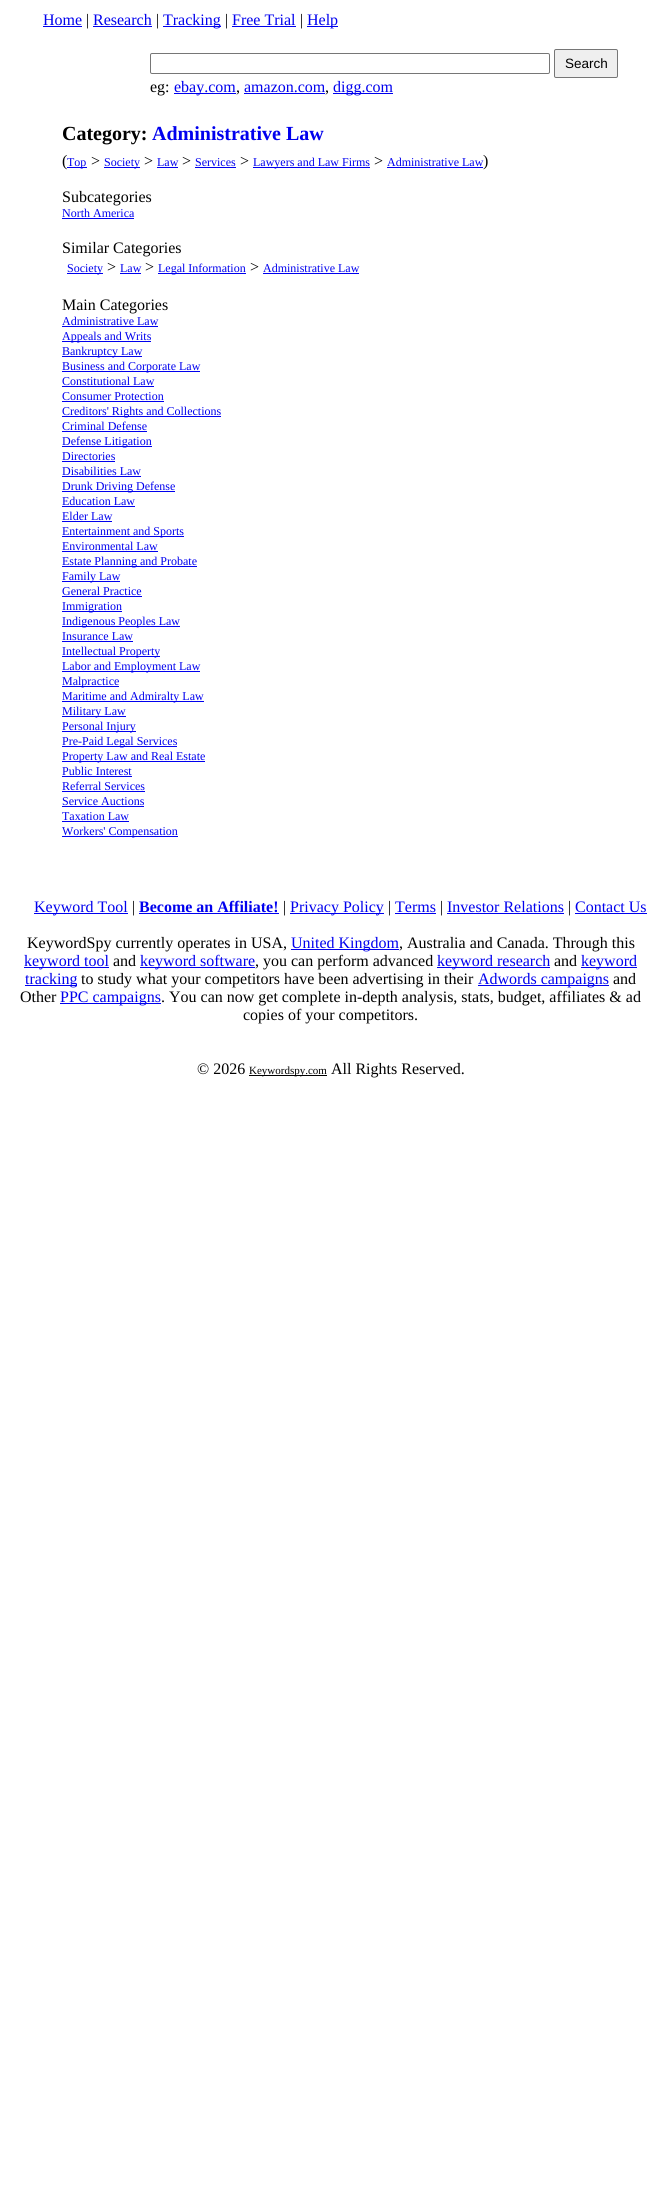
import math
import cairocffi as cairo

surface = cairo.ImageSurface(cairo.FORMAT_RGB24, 661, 2191)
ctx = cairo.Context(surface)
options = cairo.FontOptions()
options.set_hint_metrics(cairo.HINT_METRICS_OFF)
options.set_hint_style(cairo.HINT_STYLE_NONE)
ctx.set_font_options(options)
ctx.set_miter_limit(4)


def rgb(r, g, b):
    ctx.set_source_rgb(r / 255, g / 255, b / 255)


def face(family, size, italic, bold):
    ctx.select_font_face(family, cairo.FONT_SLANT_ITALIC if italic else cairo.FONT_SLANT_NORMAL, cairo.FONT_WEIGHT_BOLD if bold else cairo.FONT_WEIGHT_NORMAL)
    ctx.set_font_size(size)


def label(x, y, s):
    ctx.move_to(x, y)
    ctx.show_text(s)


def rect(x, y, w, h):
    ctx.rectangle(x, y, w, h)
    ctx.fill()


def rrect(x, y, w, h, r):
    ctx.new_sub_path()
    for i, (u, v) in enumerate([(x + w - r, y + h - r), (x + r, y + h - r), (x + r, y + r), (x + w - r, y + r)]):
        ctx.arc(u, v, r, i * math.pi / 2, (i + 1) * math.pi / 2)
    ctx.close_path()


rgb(255, 255, 255)
ctx.paint()
face('Liberation Serif', 16, 0, 0)
rgb(0, 0, 238)
label(43, 25, 'Home')
rect(43, 26, 39, 1)
rgb(0, 0, 0)
label(86, 25, '|')
rgb(0, 0, 238)
label(93, 25, 'Research')
rect(93, 26, 59, 1)
rgb(0, 0, 0)
label(156, 25, '|')
rgb(0, 0, 238)
rect(163, 26, 58, 1)
label(163, 25, 'Tracking')
rgb(0, 0, 0)
label(225, 25, '|')
rgb(0, 0, 238)
label(232, 25, 'Free Trial')
rect(232, 26, 64, 1)
rgb(0, 0, 0)
label(300, 25, '|')
rgb(0, 0, 238)
rect(307, 26, 31, 1)
label(307, 25, 'Help')
rrect(150.5, 53.5, 399, 20, 1.5)
rgb(118, 118, 118)
ctx.set_line_width(1)
ctx.stroke()
rgb(239, 239, 239)
rrect(554.5, 49.5, 63, 28, 1.5)
ctx.fill_preserve()
rgb(118, 118, 118)
ctx.stroke()
face('Liberation Sans', 13.5, 0, 0)
rgb(0, 0, 0)
label(565, 68, 'Search')
face('Liberation Serif', 16, 0, 0)
label(150, 92, 'eg:')
rgb(0, 0, 238)
rect(174, 93, 62, 1)
label(174, 92, 'ebay.com')
rgb(0, 0, 0)
label(236, 92, ',')
rgb(0, 0, 238)
label(244, 92, 'amazon.com')
rect(244, 93, 81, 1)
rgb(0, 0, 0)
label(325, 92, ',')
rgb(0, 0, 238)
rect(333, 93, 60, 1)
label(333, 92, 'digg.com')
face('Liberation Serif', 20, 0, 1)
rgb(0, 0, 0)
label(62, 140, 'Category:')
rgb(0, 0, 238)
label(152, 140, 'Administrative Law')
face('Liberation Serif', 16, 0, 0)
rgb(0, 0, 0)
label(62, 166, '(')
rgb(0, 0, 238)
rect(67, 167, 20, 1)
face('Liberation Serif', 12, 0, 0)
label(67, 166, 'Top')
face('Liberation Serif', 16, 0, 0)
rgb(0, 0, 0)
label(91, 166, '>')
rgb(0, 0, 238)
rect(104, 167, 36, 1)
face('Liberation Serif', 12, 0, 0)
label(104, 166, 'Society')
face('Liberation Serif', 16, 0, 0)
rgb(0, 0, 0)
label(144, 166, '>')
face('Liberation Serif', 12, 0, 0)
rgb(0, 0, 238)
label(157, 166, 'Law')
rect(157, 167, 21, 1)
face('Liberation Serif', 16, 0, 0)
rgb(0, 0, 0)
label(182, 166, '>')
face('Liberation Serif', 12, 0, 0)
rgb(0, 0, 238)
label(195, 166, 'Services')
rect(195, 167, 41, 1)
face('Liberation Serif', 16, 0, 0)
rgb(0, 0, 0)
label(240, 166, '>')
rgb(0, 0, 238)
rect(253, 167, 117, 1)
face('Liberation Serif', 12, 0, 0)
label(253, 166, 'Lawyers and Law Firms')
face('Liberation Serif', 16, 0, 0)
rgb(0, 0, 0)
label(374, 166, '>')
face('Liberation Serif', 12, 0, 0)
rgb(0, 0, 238)
label(387, 166, 'Administrative Law')
rect(387, 167, 96, 1)
face('Liberation Serif', 16, 0, 0)
rgb(0, 0, 0)
label(483, 166, ')')
label(62, 202, 'Subcategories')
face('Liberation Serif', 12, 0, 0)
rgb(0, 0, 238)
label(62, 217, 'North America')
rect(62, 218, 72, 1)
face('Liberation Serif', 16, 0, 0)
rgb(0, 0, 0)
label(62, 253, 'Similar Categories')
rgb(0, 0, 238)
rect(67, 273, 36, 1)
face('Liberation Serif', 12, 0, 0)
label(67, 272, 'Society')
face('Liberation Serif', 16, 0, 0)
rgb(0, 0, 0)
label(107, 272, '>')
face('Liberation Serif', 12, 0, 0)
rgb(0, 0, 238)
label(120, 272, 'Law')
rect(120, 273, 21, 1)
face('Liberation Serif', 16, 0, 0)
rgb(0, 0, 0)
label(145, 272, '>')
rgb(0, 0, 238)
rect(158, 273, 88, 1)
face('Liberation Serif', 12, 0, 0)
label(158, 272, 'Legal Information')
face('Liberation Serif', 16, 0, 0)
rgb(0, 0, 0)
label(250, 272, '>')
face('Liberation Serif', 12, 0, 0)
rgb(0, 0, 238)
label(263, 272, 'Administrative Law')
rect(263, 273, 96, 1)
face('Liberation Serif', 16, 0, 0)
rgb(0, 0, 0)
label(62, 310, 'Main Categories')
face('Liberation Serif', 12, 0, 0)
rgb(0, 0, 238)
label(62, 325, 'Administrative Law')
rect(62, 326, 96, 1)
rect(62, 341, 89, 1)
label(62, 340, 'Appeals and Writs')
rect(62, 356, 80, 1)
label(62, 355, 'Bankruptcy Law')
rect(62, 371, 138, 1)
label(62, 370, 'Business and Corporate Law')
label(62, 385, 'Constitutional Law')
rect(62, 386, 92, 1)
label(62, 400, 'Consumer Protection')
rect(62, 401, 102, 1)
rect(62, 416, 159, 1)
label(62, 415, 'Creditors\' Rights and Collections')
label(62, 430, 'Criminal Defense')
rect(62, 431, 85, 1)
rect(62, 446, 90, 1)
label(62, 445, 'Defense Litigation')
label(62, 460, 'Directories')
rect(62, 461, 53, 1)
label(62, 475, 'Disabilities Law')
rect(62, 476, 79, 1)
rect(62, 491, 113, 1)
label(62, 490, 'Drunk Driving Defense')
label(62, 505, 'Education Law')
rect(62, 506, 73, 1)
label(62, 520, 'Elder Law')
rect(62, 521, 50, 1)
rect(62, 536, 122, 1)
label(62, 535, 'Entertainment and Sports')
label(62, 550, 'Environmental Law')
rect(62, 551, 96, 1)
rect(62, 566, 135, 1)
label(62, 565, 'Estate Planning and Probate')
rect(62, 581, 58, 1)
label(62, 580, 'Family Law')
label(62, 595, 'General Practice')
rect(62, 596, 80, 1)
rect(62, 611, 60, 1)
label(62, 610, 'Immigration')
rect(62, 626, 118, 1)
label(62, 625, 'Indigenous Peoples Law')
label(62, 640, 'Insurance Law')
rect(62, 641, 71, 1)
rect(62, 656, 98, 1)
label(62, 655, 'Intellectual Property')
rect(62, 671, 138, 1)
label(62, 670, 'Labor and Employment Law')
rect(62, 686, 57, 1)
label(62, 685, 'Malpractice')
rect(62, 701, 142, 1)
label(62, 700, 'Maritime and Admiralty Law')
rect(62, 716, 64, 1)
label(62, 715, 'Military Law')
rect(62, 731, 74, 1)
label(62, 730, 'Personal Injury')
rect(62, 746, 115, 1)
label(62, 745, 'Pre-Paid Legal Services')
rect(62, 761, 143, 1)
label(62, 760, 'Property Law and Real Estate')
label(62, 775, 'Public Interest')
rect(62, 776, 70, 1)
label(62, 790, 'Referral Services')
rect(62, 791, 83, 1)
label(62, 805, 'Service Auctions')
rect(62, 806, 82, 1)
label(62, 820, 'Taxation Law')
rect(62, 821, 67, 1)
rect(62, 836, 116, 1)
label(62, 835, 'Workers\' Compensation')
rect(34, 913, 94, 1)
face('Liberation Serif', 16, 0, 0)
label(34, 912, 'Keyword Tool')
rgb(0, 0, 0)
label(132, 912, '|')
face('Liberation Serif', 16, 0, 1)
rgb(0, 0, 238)
label(139, 912, 'Become an Affiliate!')
rect(139, 913, 140, 1)
face('Liberation Serif', 16, 0, 0)
rgb(0, 0, 0)
label(283, 912, '|')
rgb(0, 0, 238)
rect(290, 913, 94, 1)
label(290, 912, 'Privacy Policy')
rgb(0, 0, 0)
label(388, 912, '|')
rgb(0, 0, 238)
label(395, 912, 'Terms')
rect(395, 913, 41, 1)
rgb(0, 0, 0)
label(440, 912, '|')
rgb(0, 0, 238)
label(447, 912, 'Investor Relations')
rect(447, 913, 117, 1)
rgb(0, 0, 0)
label(568, 912, '|')
rgb(0, 0, 238)
label(575, 912, 'Contact Us')
rect(575, 913, 72, 1)
rgb(0, 0, 0)
label(27, 948, 'KeywordSpy currently operates in USA,')
rgb(0, 0, 238)
rect(291, 949, 108, 1)
label(291, 948, 'United Kingdom')
rgb(0, 0, 0)
label(399, 948, ', Australia and Canada. Through this')
rgb(0, 0, 238)
rect(24, 967, 85, 1)
label(24, 966, 'keyword tool')
rgb(0, 0, 0)
label(113, 966, 'and')
rgb(0, 0, 238)
rect(140, 967, 115, 1)
label(140, 966, 'keyword software')
rgb(0, 0, 0)
label(255, 966, ', you can perform advanced')
rgb(0, 0, 238)
rect(437, 967, 113, 1)
label(437, 966, 'keyword research')
rgb(0, 0, 0)
label(554, 966, 'and')
rgb(0, 0, 238)
rect(581, 967, 56, 1)
label(581, 966, 'keyword')
rect(25, 985, 52, 1)
label(25, 984, 'tracking')
rgb(0, 0, 0)
label(81, 984, 'to study what your competitors have been advertising in their')
rgb(0, 0, 238)
rect(478, 985, 131, 1)
label(478, 984, 'Adwords campaigns')
rgb(0, 0, 0)
label(613, 984, 'and')
label(20, 1002, 'Other')
rgb(0, 0, 238)
rect(60, 1003, 101, 1)
label(60, 1002, 'PPC campaigns')
rgb(0, 0, 0)
label(161, 1002, '. You can now get complete in-depth analysis, stats, budget, affiliates & ad')
label(243, 1020, 'copies of your competitors.')
label(197, 1074, '© 2026')
rect(249, 1075, 78, 1)
face('Liberation Serif', 11, 0, 0)
label(249, 1074, 'Keywordspy.com')
face('Liberation Serif', 16, 0, 0)
label(331, 1074, 'All Rights Reserved.')
surface.write_to_png('render.png')
